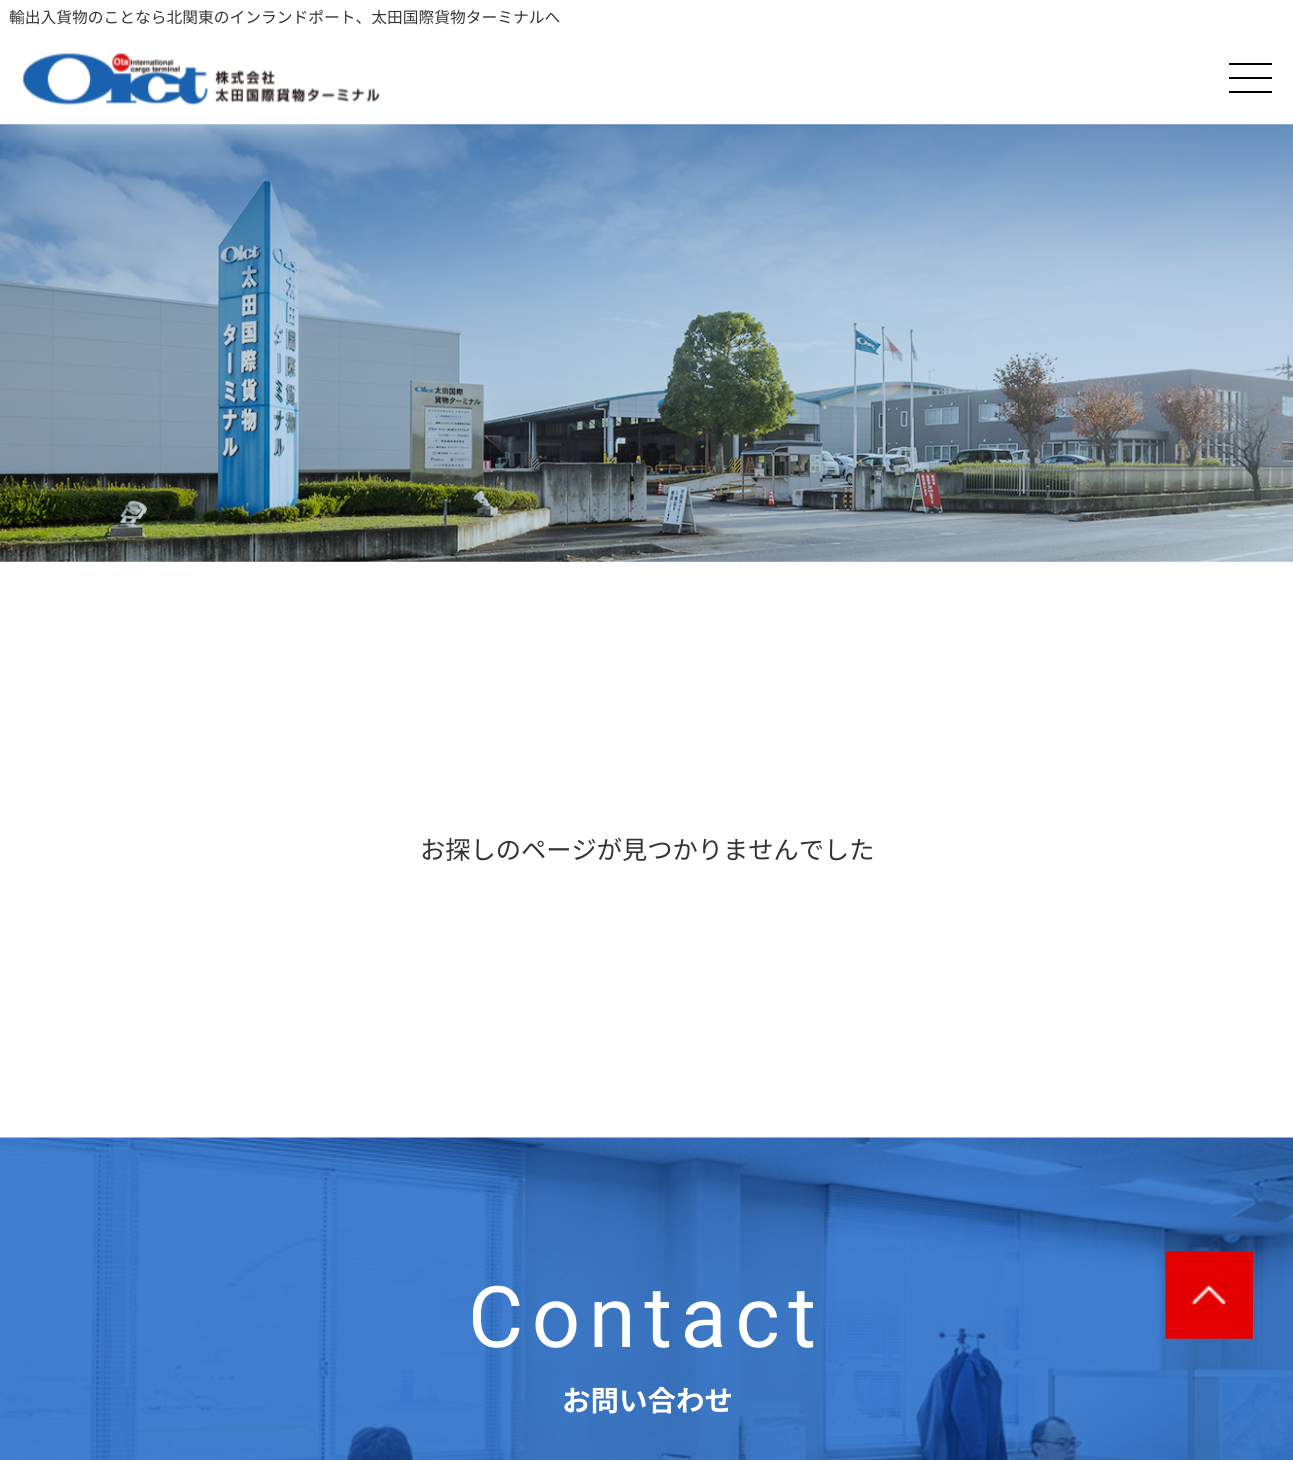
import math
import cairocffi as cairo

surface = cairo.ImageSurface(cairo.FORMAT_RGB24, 1293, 1460)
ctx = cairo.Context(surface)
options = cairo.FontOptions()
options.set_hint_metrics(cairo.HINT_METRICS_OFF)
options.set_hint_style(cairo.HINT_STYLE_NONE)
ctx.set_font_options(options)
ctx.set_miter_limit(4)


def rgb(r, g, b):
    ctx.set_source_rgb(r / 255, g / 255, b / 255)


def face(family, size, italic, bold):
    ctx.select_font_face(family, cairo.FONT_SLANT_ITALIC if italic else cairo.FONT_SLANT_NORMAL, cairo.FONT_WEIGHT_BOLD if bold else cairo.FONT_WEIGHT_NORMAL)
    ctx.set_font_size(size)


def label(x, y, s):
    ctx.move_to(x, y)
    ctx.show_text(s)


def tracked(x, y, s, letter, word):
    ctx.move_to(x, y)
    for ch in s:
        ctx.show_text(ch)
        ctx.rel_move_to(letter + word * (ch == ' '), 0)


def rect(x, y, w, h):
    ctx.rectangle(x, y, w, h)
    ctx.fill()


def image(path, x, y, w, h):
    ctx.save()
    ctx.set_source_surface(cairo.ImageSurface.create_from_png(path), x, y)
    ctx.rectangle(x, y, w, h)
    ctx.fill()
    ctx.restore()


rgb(255, 255, 255)
ctx.paint()
face('Noto Sans JP', 15.75, 0, 0)
rgb(51, 51, 51)
label(9, 23, '輸出入貨物のことなら北関東のインランドポート、太田国際貨物ターミナルへ')
image('image1.png', 0, 124, 1293, 438)
image('image0.png', 0, 53, 415, 98)
rgb(0, 0, 0)
rect(1229, 63, 43, 2)
rect(1229, 77, 43, 2)
rect(1229, 91, 43, 2)
face('Noto Sans JP', 25.25, 0, 0)
rgb(51, 51, 51)
label(420, 859, 'お探しのページが見つかりませんでした')
image('image2.png', 0, 1137, 1293, 323)
face('Roboto', 85, 0, 0)
rgb(255, 255, 255)
tracked(468, 1347, 'Contact', 8.5, 0)
face('Noto Sans JP', 28.5, 0, 1)
label(562, 1411, 'お問い合わせ')
image('image3.png', 1165, 1251, 88, 88)
surface.write_to_png('render.png')
